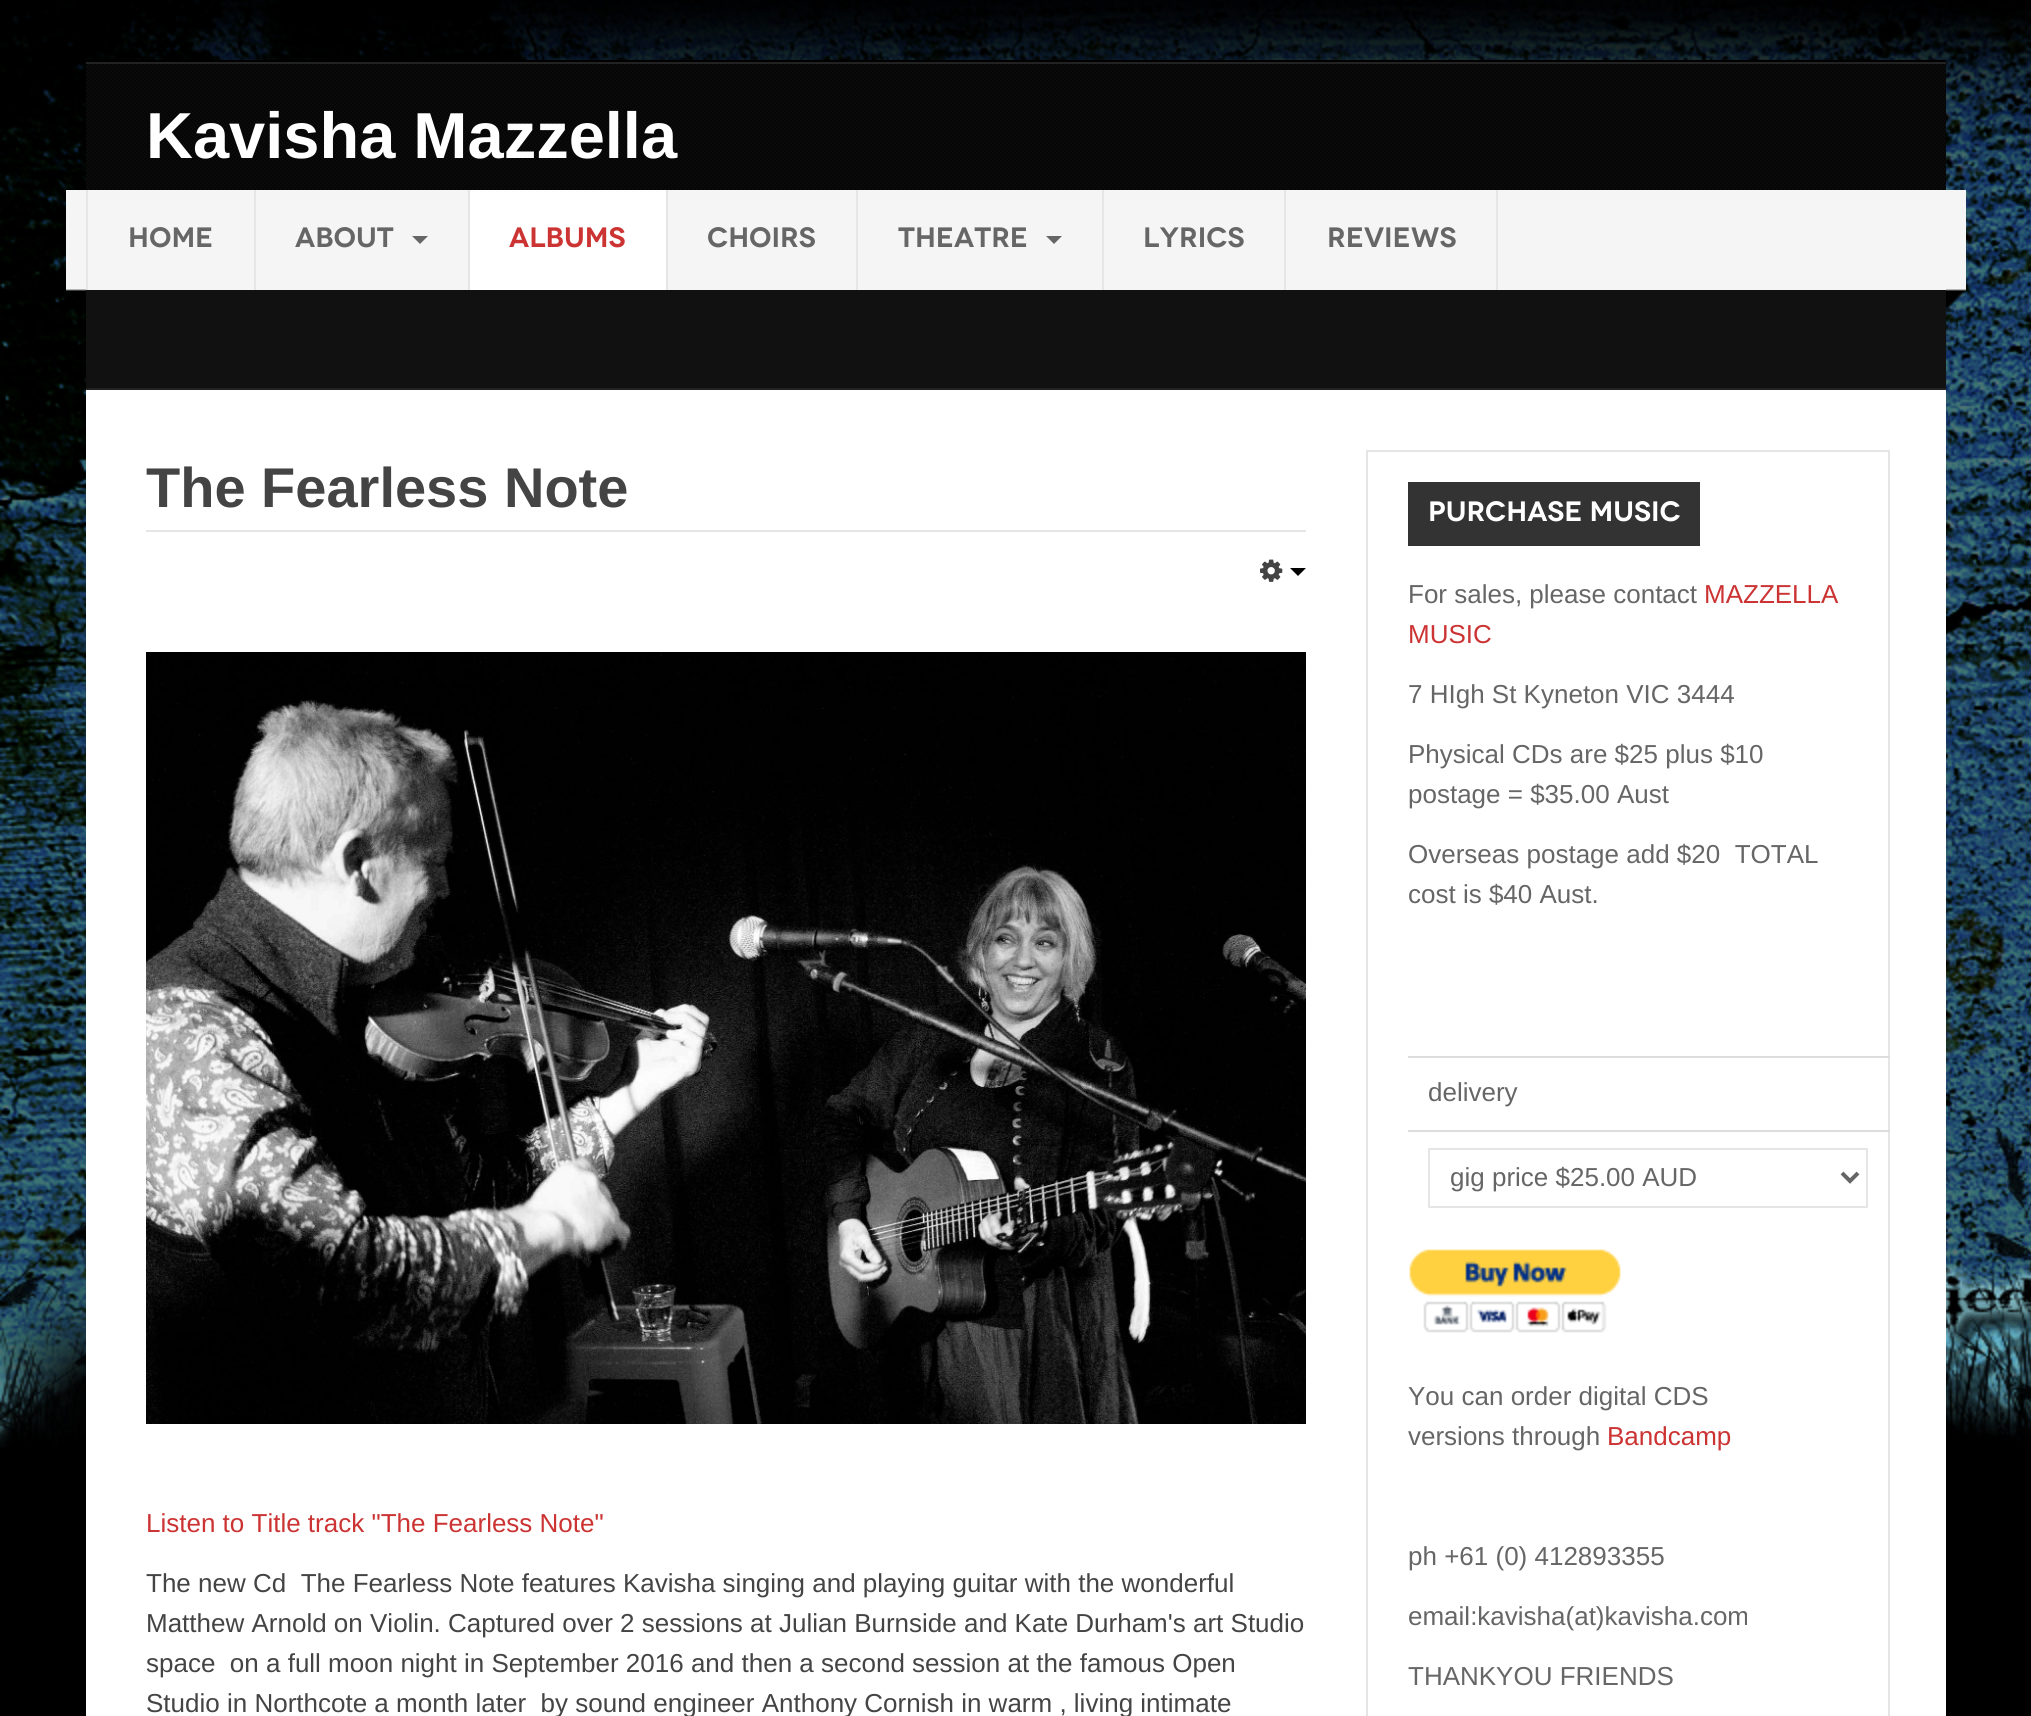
import math
import cairocffi as cairo

surface = cairo.ImageSurface(cairo.FORMAT_RGB24, 2031, 1716)
ctx = cairo.Context(surface)
options = cairo.FontOptions()
options.set_hint_metrics(cairo.HINT_METRICS_OFF)
options.set_hint_style(cairo.HINT_STYLE_NONE)
ctx.set_font_options(options)
ctx.set_miter_limit(4)


def rgb(r, g, b):
    ctx.set_source_rgb(r / 255, g / 255, b / 255)


def face(family, size, italic, bold):
    ctx.select_font_face(family, cairo.FONT_SLANT_ITALIC if italic else cairo.FONT_SLANT_NORMAL, cairo.FONT_WEIGHT_BOLD if bold else cairo.FONT_WEIGHT_NORMAL)
    ctx.set_font_size(size)


def label(x, y, s):
    ctx.move_to(x, y)
    ctx.show_text(s)


def rect(x, y, w, h):
    ctx.rectangle(x, y, w, h)
    ctx.fill()


def image(path, x, y, w, h):
    ctx.save()
    ctx.set_source_surface(cairo.ImageSurface.create_from_png(path), x, y)
    ctx.rectangle(x, y, w, h)
    ctx.fill()
    ctx.restore()


rgb(0, 0, 0)
ctx.paint()
image('image0.png', 0, 0, 2031, 1448)
rgb(0, 0, 0)
rect(86, 60, 1860, 2)
rgb(34, 34, 34)
rect(86, 62, 1860, 2)
image('image1.png', 86, 64, 1860, 126)
face('Liberation Sans', 65, 0, 1)
rgb(255, 255, 255)
label(146, 158, 'Kavisha Mazzella')
rgb(245, 245, 245)
rect(88, 190, 1858, 100)
image('image2.png', 66, 190, 20, 114)
rgb(229, 229, 229)
rect(86, 190, 2, 100)
rect(254, 190, 2, 100)
face('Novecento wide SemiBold', 28, 0, 0)
rgb(102, 102, 102)
label(128, 247, 'HOME')
rgb(229, 229, 229)
rect(468, 190, 2, 100)
rgb(102, 102, 102)
label(295, 247, 'ABOUT')
ctx.new_path()
ctx.move_to(412, 236)
ctx.line_to(428, 236)
ctx.line_to(420, 244)
ctx.close_path()
ctx.fill()
rgb(255, 255, 255)
rect(470, 190, 196, 100)
rgb(229, 229, 229)
rect(666, 190, 2, 100)
rgb(204, 51, 51)
label(509, 247, 'ALBUMS')
rgb(229, 229, 229)
rect(856, 190, 2, 100)
rgb(102, 102, 102)
label(707, 247, 'CHOIRS')
rgb(229, 229, 229)
rect(1102, 190, 2, 100)
rgb(102, 102, 102)
label(898, 247, 'THEATRE')
ctx.new_path()
ctx.move_to(1046, 236)
ctx.line_to(1062, 236)
ctx.line_to(1054, 244)
ctx.close_path()
ctx.fill()
rgb(229, 229, 229)
rect(1284, 190, 2, 100)
rgb(102, 102, 102)
label(1143, 247, 'LYRICS')
rgb(229, 229, 229)
rect(1496, 190, 2, 100)
rgb(102, 102, 102)
label(1327, 247, 'REVIEWS')
image('image3.png', 1946, 190, 20, 120)
rgb(17, 17, 17)
rect(86, 290, 1860, 98)
rgb(34, 34, 34)
rect(86, 388, 1860, 2)
rgb(255, 255, 255)
rect(86, 390, 1860, 1326)
face('Liberation Sans', 56, 0, 1)
rgb(68, 68, 68)
label(146, 507, 'The Fearless Note')
rgb(229, 229, 229)
rect(146, 530, 1160, 2)
image('image4.png', 1260, 559, 23, 23)
rgb(0, 0, 0)
ctx.new_path()
ctx.move_to(1290, 568)
ctx.line_to(1306, 568)
ctx.line_to(1298, 576)
ctx.close_path()
ctx.fill()
image('image5.png', 146, 652, 1160, 772)
face('Liberation Sans', 26, 0, 0)
rgb(204, 51, 51)
label(146, 1532, 'Listen to Title track "The Fearless Note"')
rgb(68, 68, 68)
label(146, 1592, 'The new Cd  The Fearless Note features Kavisha singing and playing guitar with the wonderful')
label(146, 1632, 'Matthew Arnold on Violin. Captured over 2 sessions at Julian Burnside and Kate Durham\'s art Studio')
label(146, 1672, 'space  on a full moon night in September 2016 and then a second session at the famous Open')
label(146, 1712, 'Studio in Northcote a month later  by sound engineer Anthony Cornish in warm , living intimate')
ctx.rectangle(1367, 451, 522, 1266)
rgb(229, 229, 229)
ctx.stroke()
rgb(51, 51, 51)
rect(1408, 482, 292, 64)
face('Novecento wide SemiBold', 28, 0, 0)
rgb(255, 255, 255)
label(1428, 521, 'PURCHASE MUSIC')
face('Liberation Sans', 26, 0, 0)
rgb(102, 102, 102)
label(1408, 603, 'For sales, please contact')
rgb(204, 51, 51)
label(1704, 603, 'MAZZELLA')
label(1408, 643, 'MUSIC')
rgb(102, 102, 102)
label(1408, 703, '7 HIgh St Kyneton VIC 3444')
label(1408, 763, 'Physical CDs are $25 plus $10')
label(1408, 803, 'postage = $35.00 Aust')
label(1408, 863, 'Overseas postage add $20  TOTAL')
label(1408, 903, 'cost is $40 Aust.')
rgb(221, 221, 221)
rect(1408, 1056, 482, 2)
rgb(102, 102, 102)
label(1428, 1101, 'delivery')
rgb(221, 221, 221)
rect(1408, 1130, 482, 2)
ctx.rectangle(1429, 1149, 438, 58)
rgb(229, 229, 229)
ctx.stroke()
ctx.new_path()
ctx.move_to(1842, 1173)
ctx.line_to(1850, 1181)
ctx.line_to(1858, 1173)
rgb(102, 102, 102)
ctx.set_line_width(4)
ctx.stroke()
label(1450, 1186, 'gig price $25.00 AUD')
image('image6.png', 1409, 1249, 212, 84)
label(1408, 1405, 'You can order digital CDS')
label(1408, 1445, 'versions through')
rgb(204, 51, 51)
label(1607, 1445, 'Bandcamp')
rgb(102, 102, 102)
label(1408, 1565, 'ph +61 (0) 412893355')
label(1408, 1625, 'email:kavisha(at)kavisha.com')
label(1408, 1685, 'THANKYOU FRIENDS')
surface.write_to_png('render.png')
